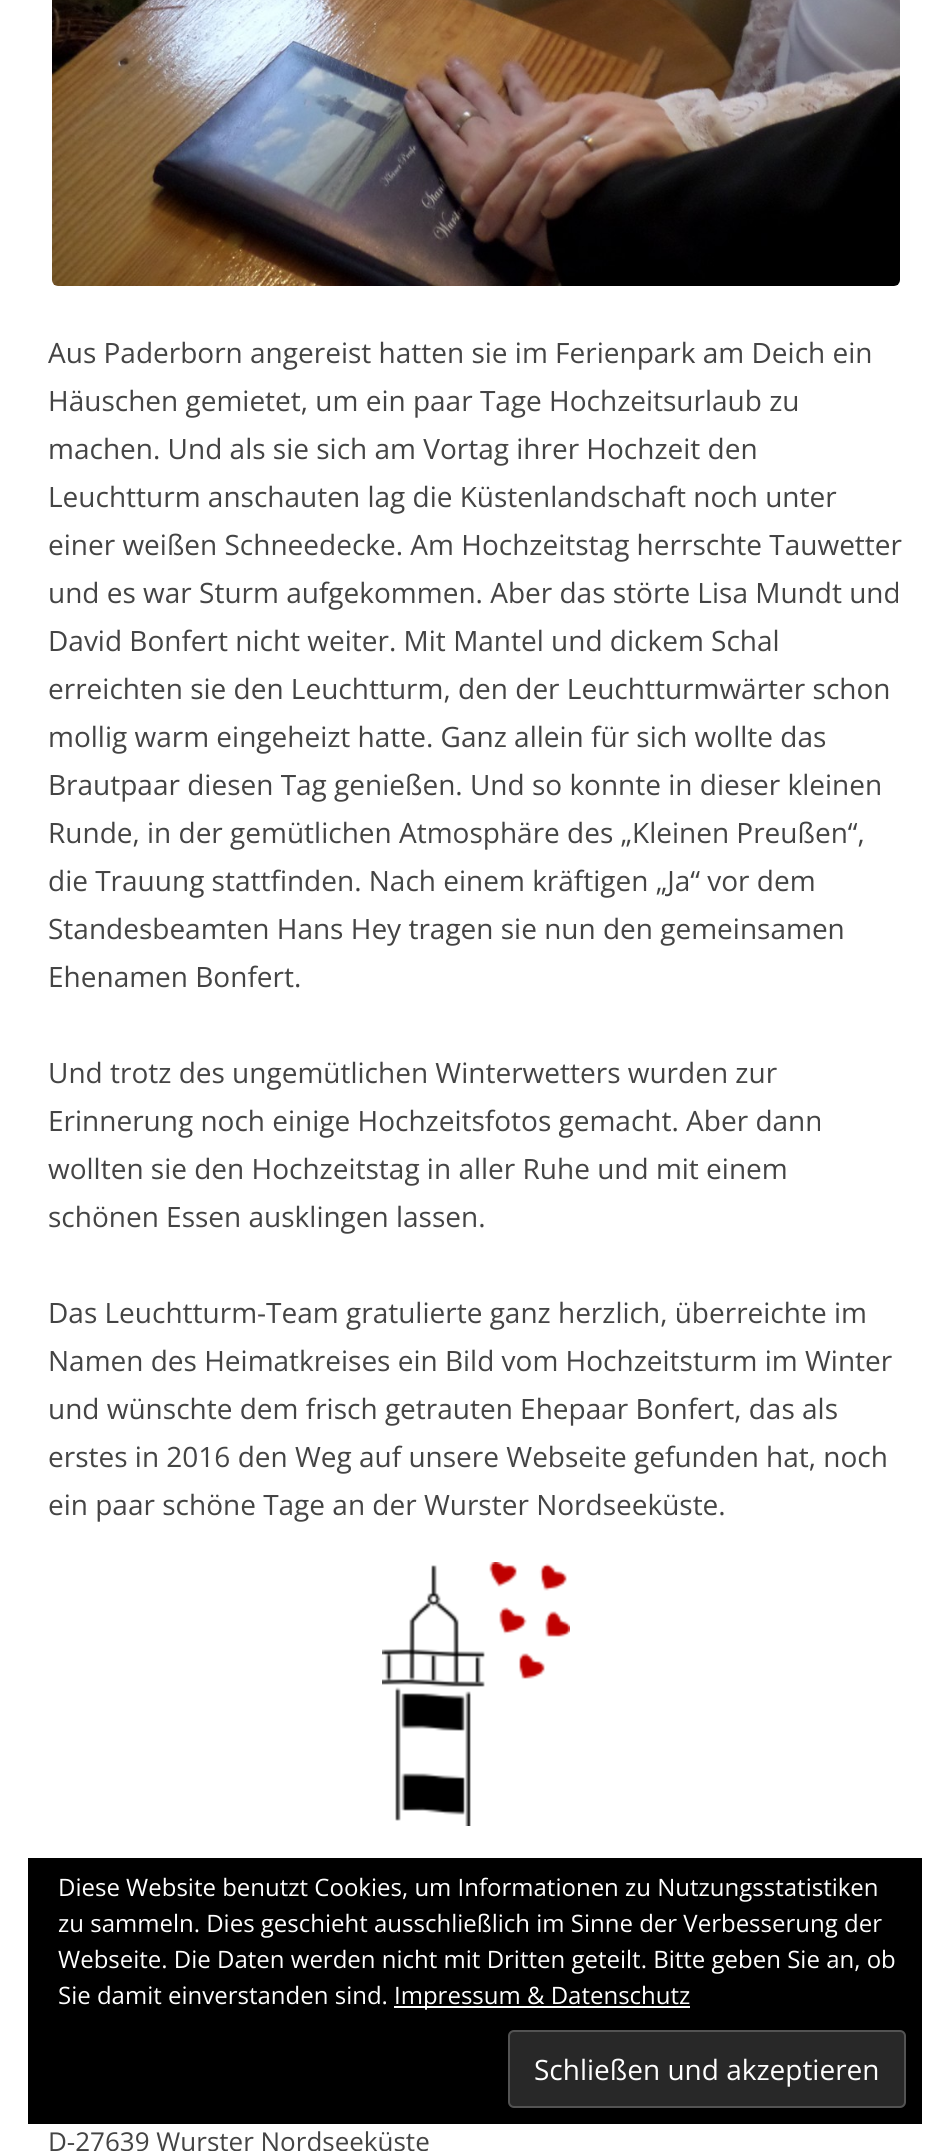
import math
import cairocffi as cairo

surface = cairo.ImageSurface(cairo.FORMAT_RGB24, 950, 2151)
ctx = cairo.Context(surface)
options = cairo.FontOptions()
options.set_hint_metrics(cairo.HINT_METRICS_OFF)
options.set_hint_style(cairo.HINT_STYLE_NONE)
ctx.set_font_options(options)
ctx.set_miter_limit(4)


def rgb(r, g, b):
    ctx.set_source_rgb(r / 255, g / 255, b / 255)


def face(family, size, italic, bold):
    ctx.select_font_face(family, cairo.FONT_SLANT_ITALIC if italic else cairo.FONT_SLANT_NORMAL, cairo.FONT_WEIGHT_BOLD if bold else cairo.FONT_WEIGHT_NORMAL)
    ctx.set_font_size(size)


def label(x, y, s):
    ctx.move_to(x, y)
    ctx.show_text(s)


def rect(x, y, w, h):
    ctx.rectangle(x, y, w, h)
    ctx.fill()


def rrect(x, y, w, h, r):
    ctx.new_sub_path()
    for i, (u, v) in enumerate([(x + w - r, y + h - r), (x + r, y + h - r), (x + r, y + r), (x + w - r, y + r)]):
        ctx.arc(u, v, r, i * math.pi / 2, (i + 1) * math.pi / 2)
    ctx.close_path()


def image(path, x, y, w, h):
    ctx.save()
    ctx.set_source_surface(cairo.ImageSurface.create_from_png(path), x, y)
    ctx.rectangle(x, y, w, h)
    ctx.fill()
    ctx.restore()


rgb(255, 255, 255)
ctx.paint()
image('image0.png', 382, 1562, 188, 264)
image('image1.png', 52, 0, 848, 286)
face('Open Sans', 28, 0, 0)
rgb(68, 68, 68)
label(48, 363, 'Aus Paderborn angereist hatten sie im Ferienpark am Deich ein')
label(48, 411, 'Häuschen gemietet, um ein paar Tage Hochzeitsurlaub zu')
label(48, 459, 'machen. Und als sie sich am Vortag ihrer Hochzeit den')
label(48, 507, 'Leuchtturm anschauten lag die Küstenlandschaft noch unter')
label(48, 555, 'einer weißen Schneedecke. Am Hochzeitstag herrschte Tauwetter')
label(48, 603, 'und es war Sturm aufgekommen. Aber das störte Lisa Mundt und')
label(48, 651, 'David Bonfert nicht weiter. Mit Mantel und dickem Schal')
label(48, 699, 'erreichten sie den Leuchtturm, den der Leuchtturmwärter schon')
label(48, 747, 'mollig warm eingeheizt hatte. Ganz allein für sich wollte das')
label(48, 795, 'Brautpaar diesen Tag genießen. Und so konnte in dieser kleinen')
label(48, 843, 'Runde, in der gemütlichen Atmosphäre des „Kleinen Preußen“,')
label(48, 891, 'die Trauung stattfinden. Nach einem kräftigen „Ja“ vor dem')
label(48, 939, 'Standesbeamten Hans Hey tragen sie nun den gemeinsamen')
label(48, 987, 'Ehenamen Bonfert.')
label(48, 1083, 'Und trotz des ungemütlichen Winterwetters wurden zur')
label(48, 1131, 'Erinnerung noch einige Hochzeitsfotos gemacht. Aber dann')
label(48, 1179, 'wollten sie den Hochzeitstag in aller Ruhe und mit einem')
label(48, 1227, 'schönen Essen ausklingen lassen.')
label(48, 1323, 'Das Leuchtturm-Team gratulierte ganz herzlich, überreichte im')
label(48, 1371, 'Namen des Heimatkreises ein Bild vom Hochzeitsturm im Winter')
label(48, 1419, 'und wünschte dem frisch getrauten Ehepaar Bonfert, das als')
label(48, 1467, 'erstes in 2016 den Weg auf unsere Webseite gefunden hat, noch')
label(48, 1515, 'ein paar schöne Tage an der Wurster Nordseeküste.')
face('Open Sans', 26, 0, 0)
label(48, 2151, 'D-27639 Wurster Nordseeküste')
rgb(0, 0, 0)
rect(28, 1858, 894, 266)
face('Open Sans', 24, 0, 0)
rgb(255, 255, 255)
label(58, 1896, 'Diese Website benutzt Cookies, um Informationen zu Nutzungsstatistiken')
label(58, 1932, 'zu sammeln. Dies geschieht ausschließlich im Sinne der Verbesserung der')
label(58, 1968, 'Webseite. Die Daten werden nicht mit Dritten geteilt. Bitte geben Sie an, ob')
label(58, 2004, 'Sie damit einverstanden sind.')
rect(394, 2006, 296, 2)
label(394, 2004, 'Impressum & Datenschutz')
rgb(40, 40, 40)
rrect(509, 2031, 396, 76, 5)
ctx.fill_preserve()
rgb(83, 83, 83)
ctx.stroke()
face('Open Sans', 28, 0, 0)
rgb(255, 255, 255)
label(534, 2080, 'Schließen und akzeptieren')
surface.write_to_png('render.png')
